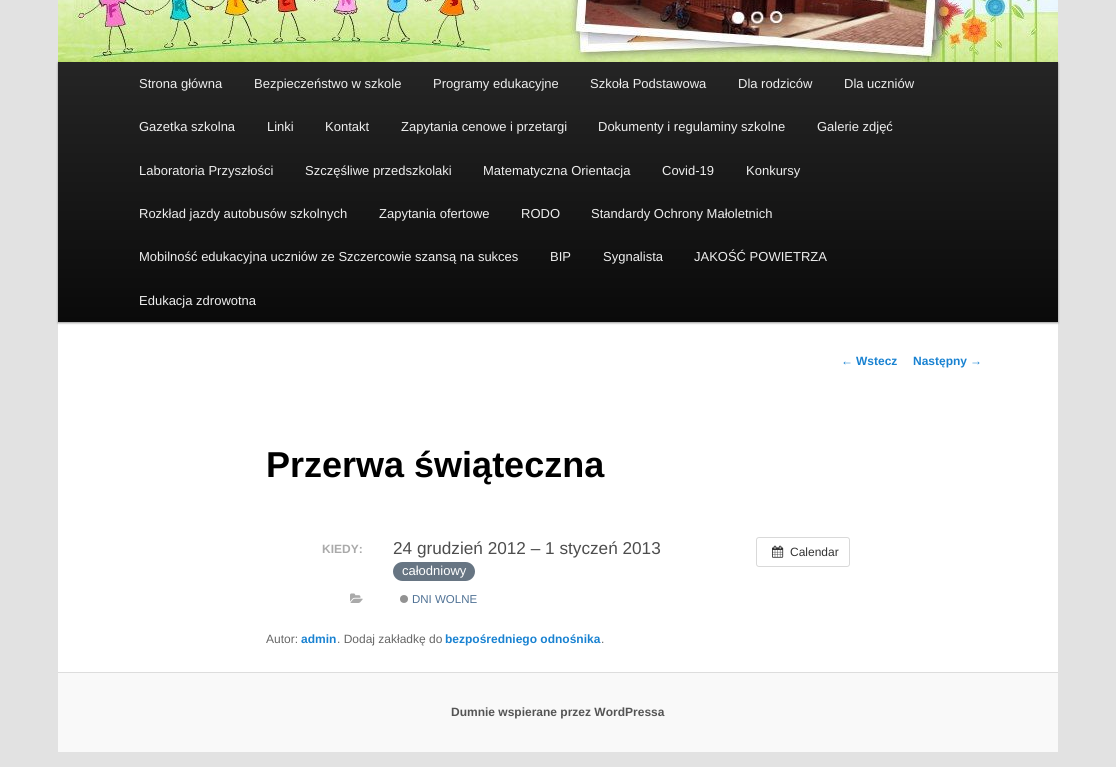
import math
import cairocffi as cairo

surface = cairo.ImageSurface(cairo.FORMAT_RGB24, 1116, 767)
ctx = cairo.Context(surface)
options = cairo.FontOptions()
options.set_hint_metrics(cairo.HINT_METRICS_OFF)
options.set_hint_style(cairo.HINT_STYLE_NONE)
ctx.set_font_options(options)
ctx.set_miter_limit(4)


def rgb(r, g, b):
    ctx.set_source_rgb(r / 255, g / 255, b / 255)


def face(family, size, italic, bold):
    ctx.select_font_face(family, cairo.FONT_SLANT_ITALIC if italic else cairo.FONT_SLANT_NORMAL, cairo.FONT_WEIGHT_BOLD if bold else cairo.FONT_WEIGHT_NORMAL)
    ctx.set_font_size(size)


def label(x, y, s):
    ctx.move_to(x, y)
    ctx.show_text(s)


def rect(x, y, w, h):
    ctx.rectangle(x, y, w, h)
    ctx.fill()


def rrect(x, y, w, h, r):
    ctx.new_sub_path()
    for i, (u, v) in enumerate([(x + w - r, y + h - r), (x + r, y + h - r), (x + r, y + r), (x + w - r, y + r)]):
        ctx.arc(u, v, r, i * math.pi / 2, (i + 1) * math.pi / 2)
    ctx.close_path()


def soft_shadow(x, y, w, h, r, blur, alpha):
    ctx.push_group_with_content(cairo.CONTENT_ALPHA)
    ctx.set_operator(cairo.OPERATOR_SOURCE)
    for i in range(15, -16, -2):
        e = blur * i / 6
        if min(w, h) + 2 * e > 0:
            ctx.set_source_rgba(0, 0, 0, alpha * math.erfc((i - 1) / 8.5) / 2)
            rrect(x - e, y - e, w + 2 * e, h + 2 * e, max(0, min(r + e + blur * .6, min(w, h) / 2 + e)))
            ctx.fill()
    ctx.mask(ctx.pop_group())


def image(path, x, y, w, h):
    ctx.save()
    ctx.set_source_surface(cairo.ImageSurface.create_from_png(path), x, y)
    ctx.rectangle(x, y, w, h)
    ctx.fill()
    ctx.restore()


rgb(226, 226, 226)
ctx.paint()
rgb(255, 255, 255)
rect(58, 322, 1000, 350)
rgb(0, 0, 0)
soft_shadow(58, 63, 1000, 260, 0, 1, 0.4)
image('image0.png', 58, 0, 1000, 62)
gradient = cairo.LinearGradient(558, 62, 558, 322)
gradient.add_color_stop_rgba(0, 0.145, 0.145, 0.145, 1)
gradient.add_color_stop_rgba(1, 0.039, 0.039, 0.039, 1)
ctx.set_source(gradient)
rect(58, 62, 1000, 260)
face('Liberation Sans', 13, 0, 0)
rgb(238, 238, 238)
label(139, 88, 'Strona główna')
label(254, 88, 'Bezpieczeństwo w szkole')
label(433, 88, 'Programy edukacyjne')
label(590, 88, 'Szkoła Podstawowa')
label(738, 88, 'Dla rodziców')
label(844, 88, 'Dla uczniów')
label(139, 131, 'Gazetka szkolna')
label(267, 131, 'Linki')
label(325, 131, 'Kontakt')
label(401, 131, 'Zapytania cenowe i przetargi')
label(598, 131, 'Dokumenty i regulaminy szkolne')
label(817, 131, 'Galerie zdjęć')
label(139, 175, 'Laboratoria Przyszłości')
label(305, 175, 'Szczęśliwe przedszkolaki')
label(483, 175, 'Matematyczna Orientacja')
label(662, 175, 'Covid-19')
label(746, 175, 'Konkursy')
label(139, 218, 'Rozkład jazdy autobusów szkolnych')
label(379, 218, 'Zapytania ofertowe')
label(521, 218, 'RODO')
label(591, 218, 'Standardy Ochrony Małoletnich')
label(139, 261, 'Mobilność edukacyjna uczniów ze Szczercowie szansą na sukces')
label(550, 261, 'BIP')
label(603, 261, 'Sygnalista')
label(694, 261, 'JAKOŚĆ POWIETRZA')
label(139, 305, 'Edukacja zdrowotna')
face('Liberation Sans', 12, 0, 0)
rgb(25, 130, 209)
label(841, 365, '←')
face('Liberation Sans', 12, 0, 1)
label(856, 365, 'Wstecz')
label(913, 365, 'Następny')
face('Liberation Sans', 12, 0, 0)
label(970, 365, '→')
face('Liberation Sans', 36, 0, 1)
rgb(0, 0, 0)
label(266, 477, 'Przerwa świąteczna')
face('Liberation Sans', 12, 0, 1)
rgb(170, 170, 170)
label(322, 553, 'KIEDY:')
face('Liberation Sans', 17.2, 0, 0)
rgb(77, 77, 77)
label(393, 554, '24 grudzień 2012 – 1 styczeń 2013')
rgb(103, 117, 131)
rrect(393, 562, 82, 19, 9.5)
ctx.fill()
face('Liberation Sans', 13, 0, 0)
rgb(255, 255, 255)
label(402, 575, 'całodniowy')
image('image1.png', 350, 593, 13, 10)
rgb(146, 146, 146)
ctx.arc(404, 599, 4, 0, 2 * math.pi)
ctx.fill()
face('Liberation Sans', 11.5, 0, 0)
rgb(80, 114, 149)
label(412, 603, 'DNI WOLNE')
rrect(756.5, 537.5, 93, 29, 2.5)
rgb(217, 217, 217)
ctx.set_line_width(1)
ctx.stroke()
image('image2.png', 772, 545, 12, 13)
face('Liberation Sans', 12, 0, 0)
rgb(51, 51, 51)
label(790, 556, 'Calendar')
rgb(102, 102, 102)
label(266, 643, 'Autor:')
face('Liberation Sans', 12, 0, 1)
rgb(25, 130, 209)
label(301, 643, 'admin')
face('Liberation Sans', 12, 0, 0)
rgb(102, 102, 102)
label(337, 643, '. Dodaj zakładkę do')
face('Liberation Sans', 12, 0, 1)
rgb(25, 130, 209)
label(445, 643, 'bezpośredniego odnośnika')
face('Liberation Sans', 12, 0, 0)
rgb(102, 102, 102)
label(601, 643, '.')
rgb(249, 249, 249)
rect(58, 673, 1000, 79)
rgb(221, 221, 221)
rect(58, 672, 1000, 1)
face('Liberation Sans', 12, 0, 1)
rgb(85, 85, 85)
label(451, 716, 'Dumnie wspierane przez WordPressa')
surface.write_to_png('render.png')
